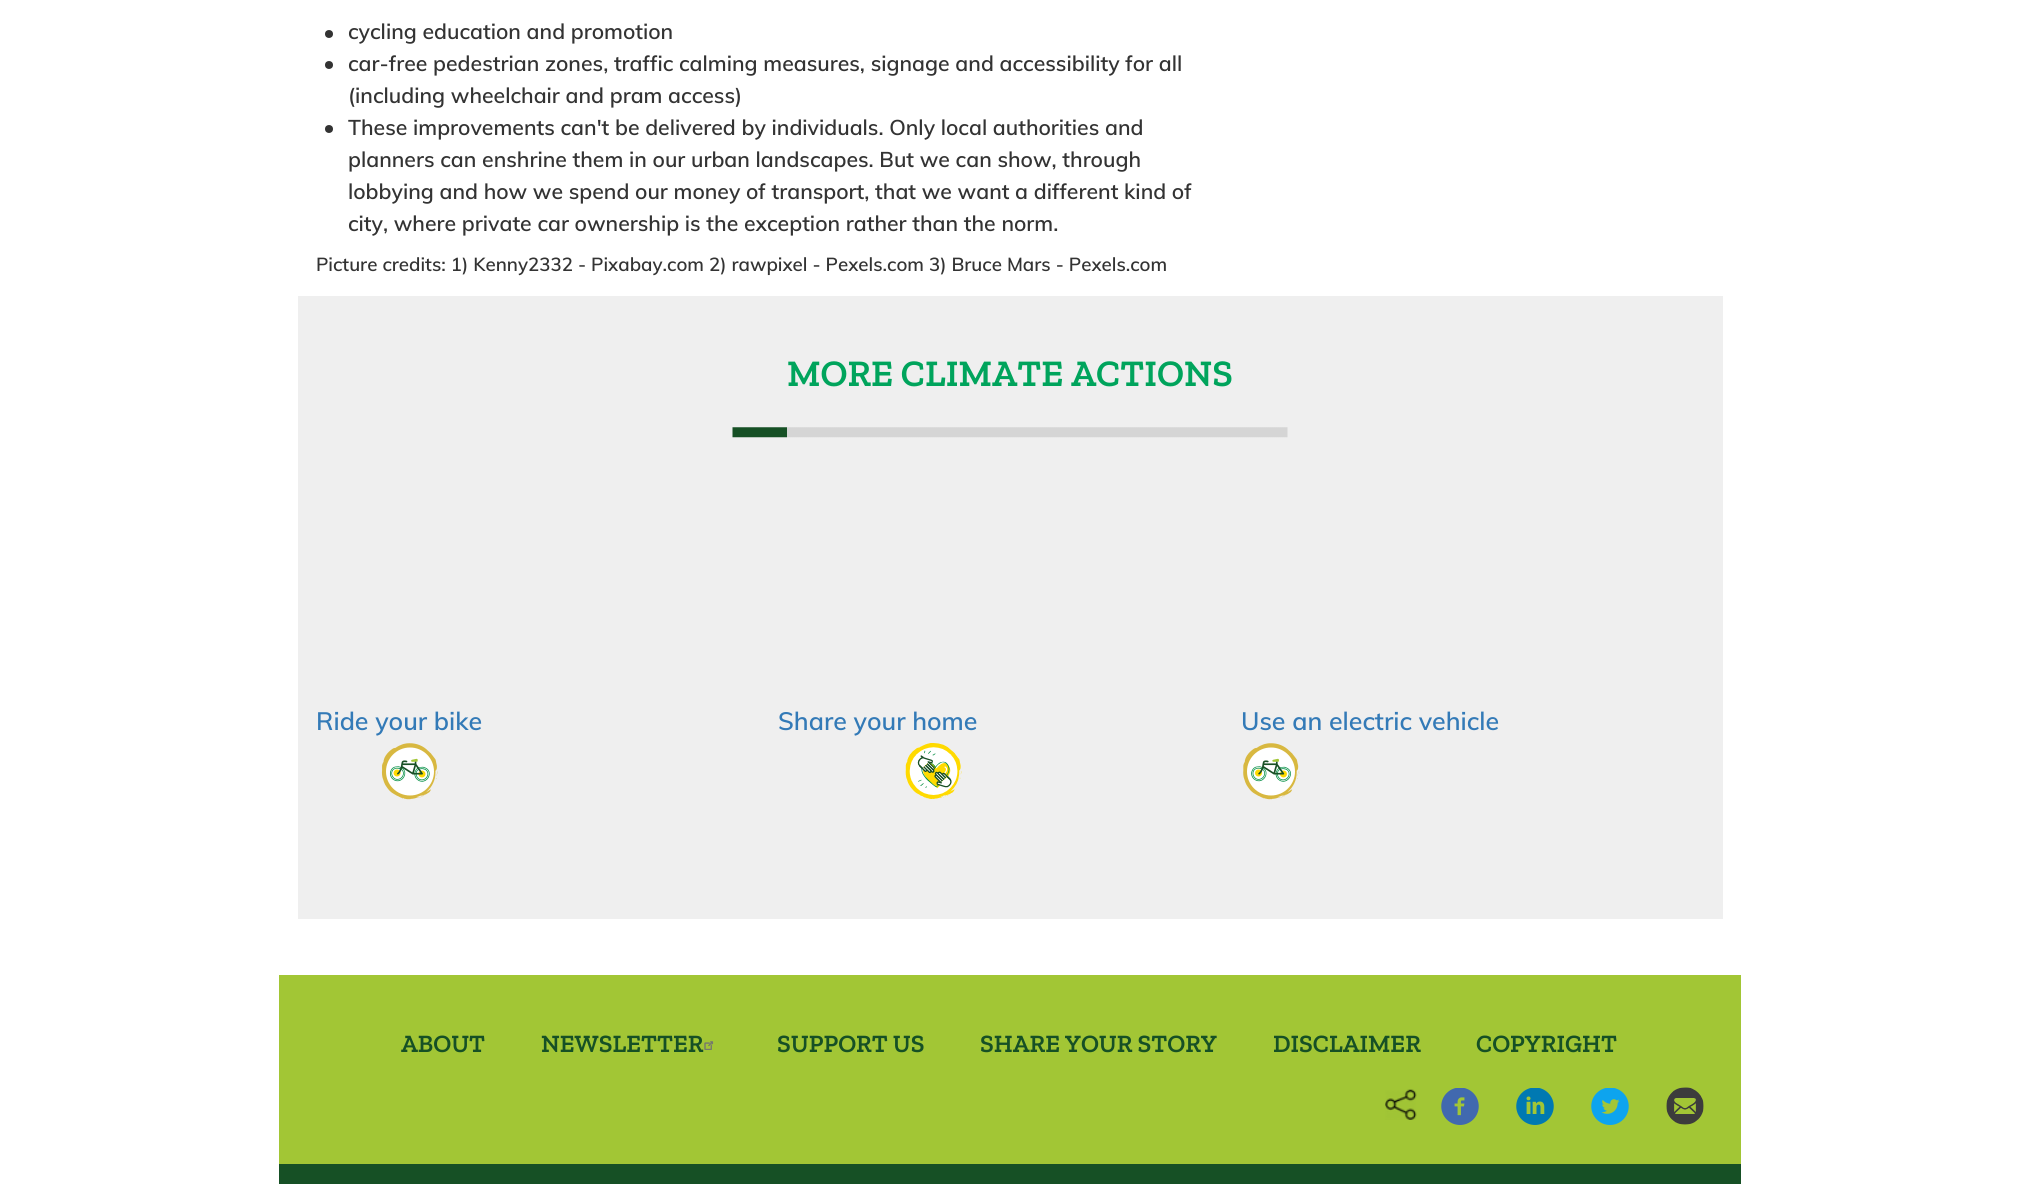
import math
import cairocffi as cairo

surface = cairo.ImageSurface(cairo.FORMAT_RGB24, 2018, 1184)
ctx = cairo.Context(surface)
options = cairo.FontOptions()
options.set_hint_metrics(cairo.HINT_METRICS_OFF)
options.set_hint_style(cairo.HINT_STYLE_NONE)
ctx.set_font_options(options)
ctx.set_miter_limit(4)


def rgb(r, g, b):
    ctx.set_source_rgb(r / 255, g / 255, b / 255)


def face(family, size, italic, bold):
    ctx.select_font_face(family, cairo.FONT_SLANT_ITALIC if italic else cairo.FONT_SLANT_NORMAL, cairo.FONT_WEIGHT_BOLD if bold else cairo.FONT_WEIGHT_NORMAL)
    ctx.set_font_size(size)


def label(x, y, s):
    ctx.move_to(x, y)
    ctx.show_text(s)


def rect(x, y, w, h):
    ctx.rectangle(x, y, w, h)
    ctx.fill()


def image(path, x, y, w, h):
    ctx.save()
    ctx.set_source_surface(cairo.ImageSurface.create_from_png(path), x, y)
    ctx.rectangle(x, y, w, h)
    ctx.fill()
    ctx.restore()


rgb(255, 255, 255)
ctx.paint()
rgb(51, 51, 51)
ctx.arc(329, 34, 4, 0, 2 * math.pi)
ctx.fill()
face('Muli SemiBold', 21.25, 0, 0)
label(348, 39, 'cycling education and promotion')
ctx.new_path()
ctx.arc(329, 65, 4, 0, 2 * math.pi)
ctx.fill()
label(348, 71, 'car-free pedestrian zones, traffic calming measures, signage and accessibility for all')
label(348, 103, '(including wheelchair and pram access)')
ctx.new_path()
ctx.arc(329, 129, 4, 0, 2 * math.pi)
ctx.fill()
label(348, 135, 'These improvements can\'t be delivered by individuals. Only local authorities and')
label(348, 167, 'planners can enshrine them in our urban landscapes. But we can show, through')
label(348, 199, 'lobbying and how we spend our money of transport, that we want a different kind of')
label(348, 231, 'city, where private car ownership is the exception rather than the norm.')
face('Muli SemiBold', 18.75, 0, 0)
label(316, 271, 'Picture credits: 1) Kenny2332 - Pixabay.com 2) rawpixel - Pexels.com 3) Bruce Mars - Pexels.com')
rgb(239, 239, 239)
rect(298, 296, 1425, 623)
image('image0.png', 732, 427, 556, 11)
face('Zilla Slab SemiBold', 37.5, 0, 0)
rgb(0, 164, 92)
label(787, 386, 'MORE CLIMATE ACTIONS')
face('Muli SemiBold', 25, 0, 0)
rgb(51, 122, 183)
label(316, 730, 'Ride your bike')
image('image1.png', 381, 743, 57, 57)
label(778, 730, 'Share your home')
image('image2.png', 905, 743, 57, 56)
label(1241, 730, 'Use an electric vehicle')
image('image3.png', 1243, 743, 57, 57)
rgb(162, 198, 53)
rect(279, 975, 1462, 189)
rgb(22, 80, 37)
rect(279, 1164, 1462, 20)
face('Zilla Slab SemiBold', 25, 0, 0)
label(401, 1052, 'ABOUT')
label(541, 1052, 'NEWSLETTER')
image('image4.png', 704, 1041, 10, 9)
label(777, 1052, 'SUPPORT US')
label(980, 1052, 'SHARE YOUR STORY')
label(1273, 1052, 'DISCLAIMER')
label(1476, 1052, 'COPYRIGHT')
image('image5.png', 1385, 1089, 32, 31)
image('image6.png', 1441, 1088, 38, 37)
image('image7.png', 1516, 1088, 38, 37)
image('image8.png', 1591, 1088, 38, 37)
image('image9.png', 1666, 1087, 38, 38)
surface.write_to_png('render.png')
